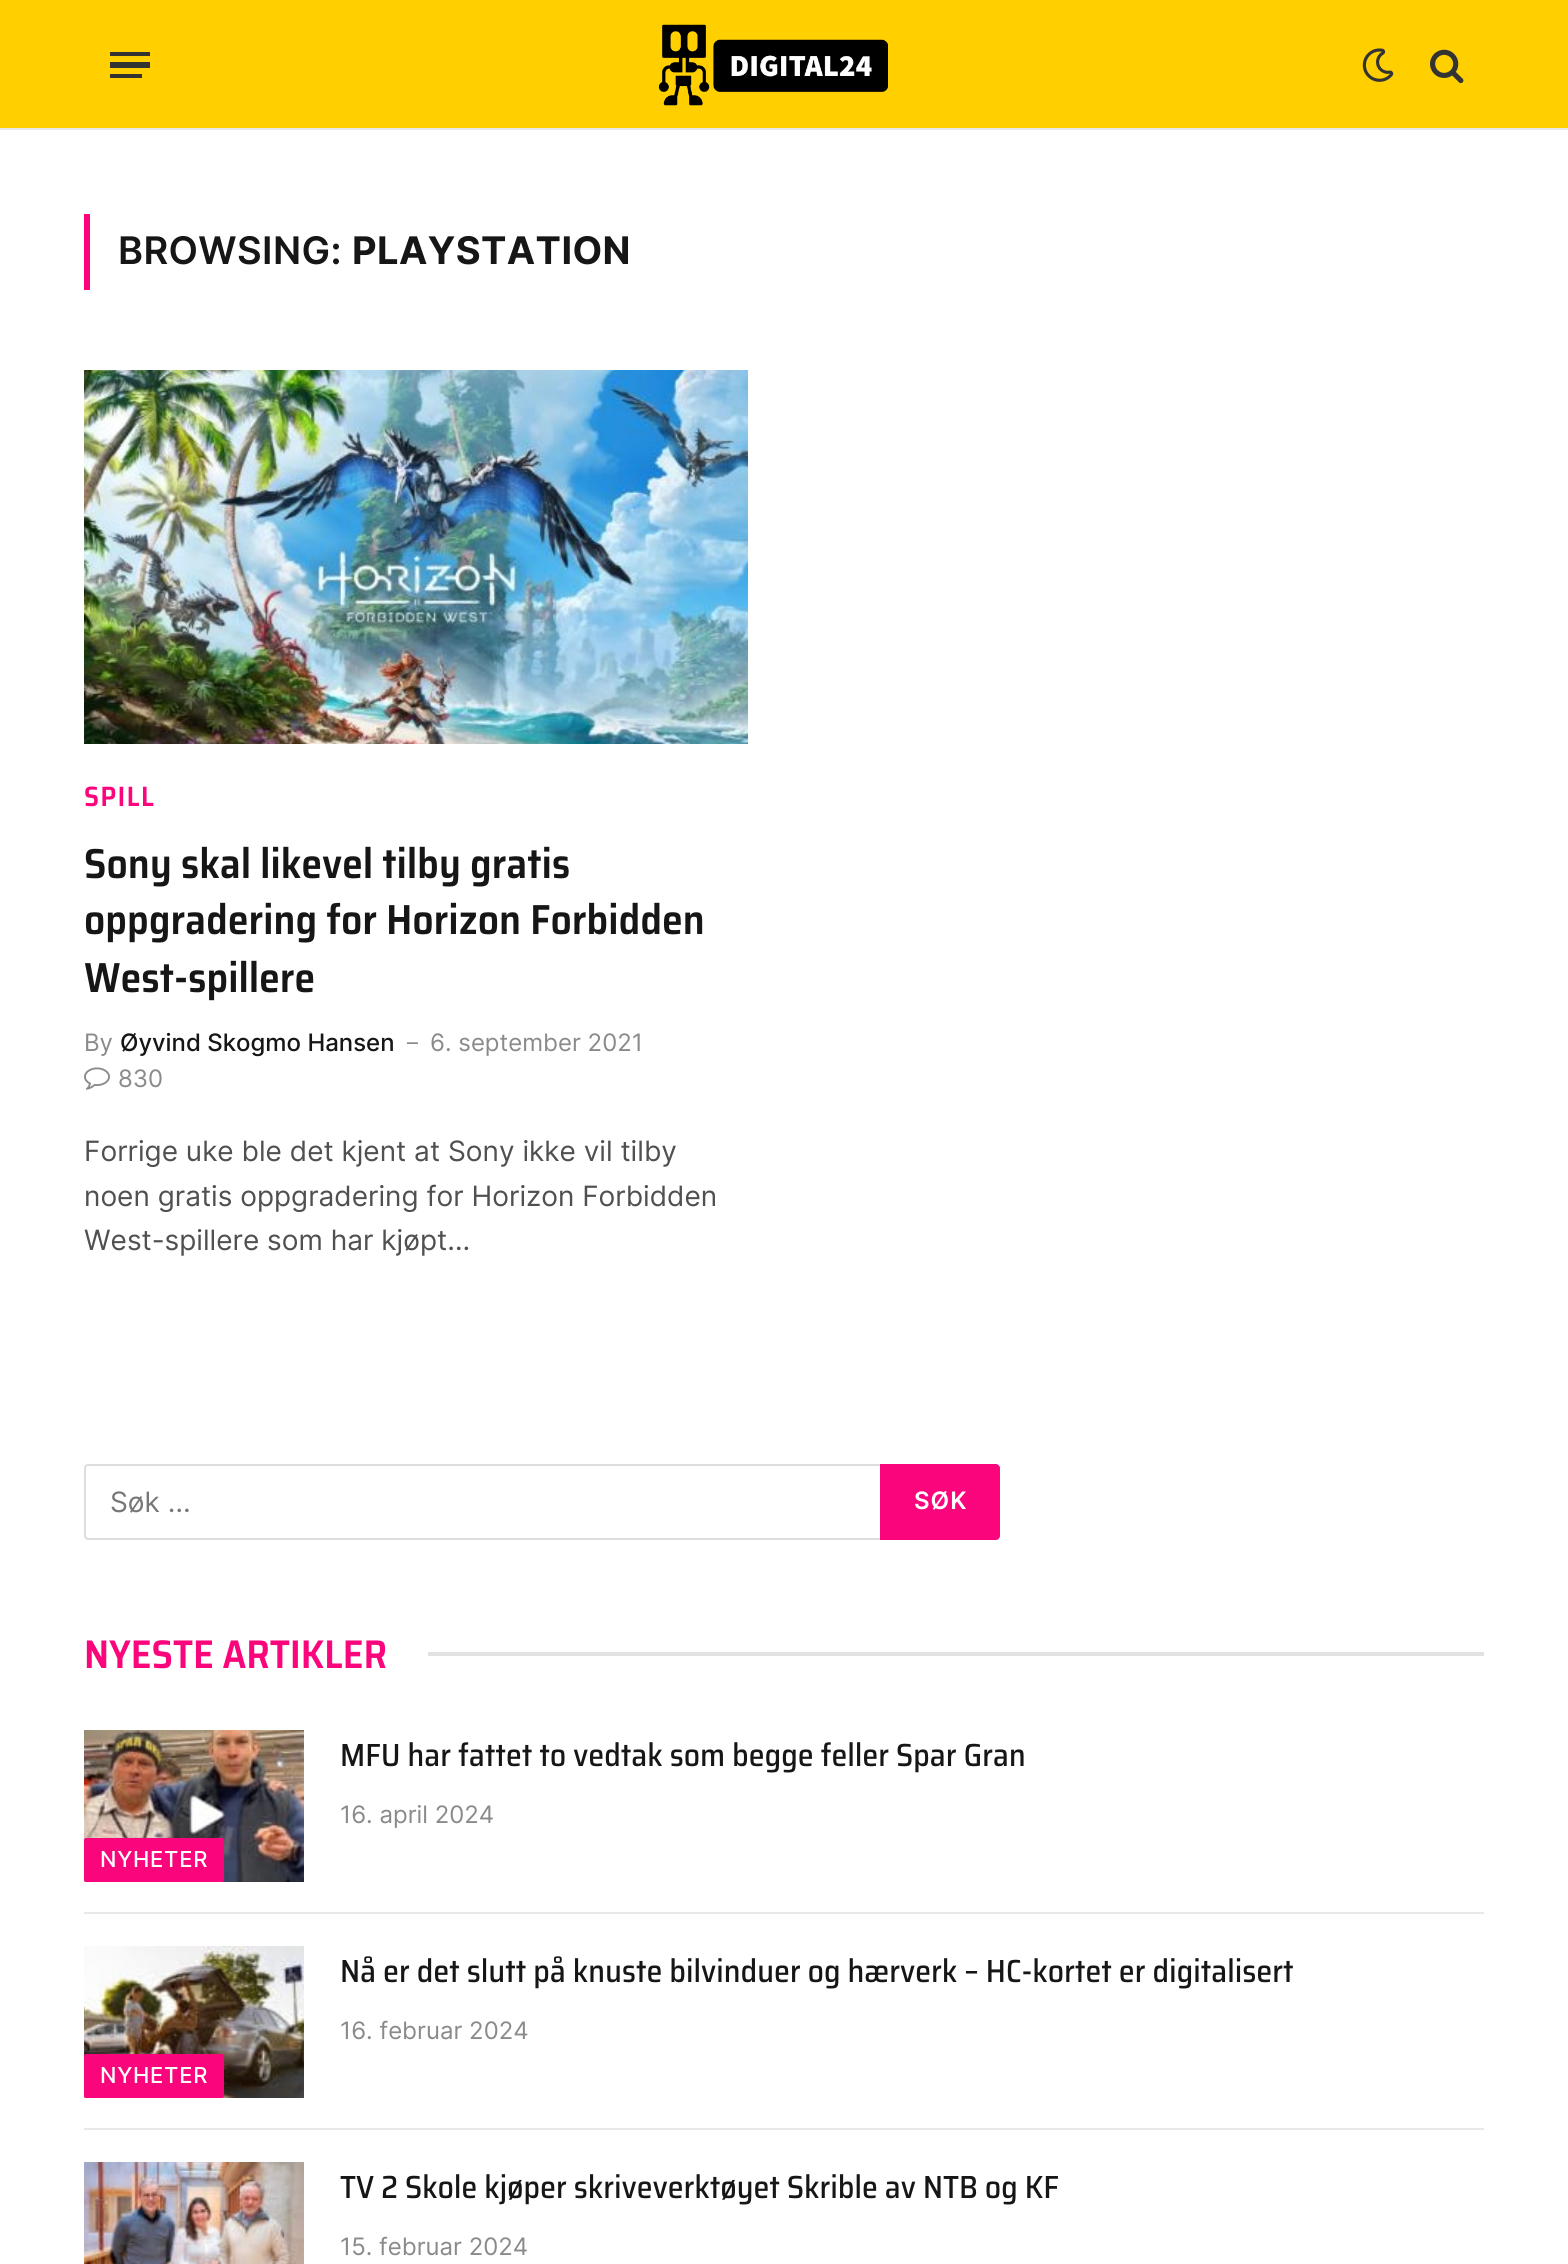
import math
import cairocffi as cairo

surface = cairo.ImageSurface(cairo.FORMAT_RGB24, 1568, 2264)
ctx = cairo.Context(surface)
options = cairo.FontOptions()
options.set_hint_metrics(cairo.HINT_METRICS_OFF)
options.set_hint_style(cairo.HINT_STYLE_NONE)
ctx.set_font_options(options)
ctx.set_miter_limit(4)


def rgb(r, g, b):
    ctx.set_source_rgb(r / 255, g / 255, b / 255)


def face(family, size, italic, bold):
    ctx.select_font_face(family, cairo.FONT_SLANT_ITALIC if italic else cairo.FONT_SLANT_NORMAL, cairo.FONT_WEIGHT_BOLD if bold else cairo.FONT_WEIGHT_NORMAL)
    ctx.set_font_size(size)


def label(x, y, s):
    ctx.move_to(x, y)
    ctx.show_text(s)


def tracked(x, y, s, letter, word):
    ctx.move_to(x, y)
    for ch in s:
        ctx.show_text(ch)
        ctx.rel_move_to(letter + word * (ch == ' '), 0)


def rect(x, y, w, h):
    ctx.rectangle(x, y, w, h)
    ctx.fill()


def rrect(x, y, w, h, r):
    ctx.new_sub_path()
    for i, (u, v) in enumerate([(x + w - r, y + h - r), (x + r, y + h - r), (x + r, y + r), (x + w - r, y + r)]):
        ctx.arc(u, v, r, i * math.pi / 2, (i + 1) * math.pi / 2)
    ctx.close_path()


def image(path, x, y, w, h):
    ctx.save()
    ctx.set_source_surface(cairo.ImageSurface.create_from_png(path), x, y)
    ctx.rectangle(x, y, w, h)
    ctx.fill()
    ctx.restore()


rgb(255, 255, 255)
ctx.paint()
rgb(255, 207, 0)
rect(0, 0, 1568, 128)
rgb(232, 232, 232)
rect(0, 128, 1568, 2)
rgb(51, 51, 51)
rect(110, 74, 32, 4)
rect(110, 52, 40, 4)
rect(110, 62, 40, 6)
image('image0.png', 658, 24, 230, 82)
image('image1.png', 1362, 48, 32, 34)
image('image2.png', 1430, 49, 34, 35)
rgb(250, 5, 123)
rect(84, 214, 6, 76)
face('Inter SemiBold', 38, 0, 0)
rgb(22, 22, 22)
tracked(118, 264, 'BROWSING:', 0.4, 0)
face('Inter', 38, 0, 1)
tracked(352, 264, 'PLAYSTATION', 0.4, 0)
image('image3.png', 84, 370, 664, 374)
image('image4.png', 85, 786, 69, 21)
image('image5.png', 85, 846, 484, 41)
image('image6.png', 85, 902, 618, 41)
image('image7.png', 85, 960, 229, 41)
face('Inter', 24, 0, 0)
rgb(138, 138, 138)
label(84, 1051, 'By')
face('Inter Medium', 24, 0, 0)
rgb(22, 22, 22)
label(120, 1051, 'Øyvind Skogmo Hansen')
face('Inter', 22, 0, 0)
rgb(138, 138, 138)
label(407, 1050, '–')
face('Inter', 24, 0, 0)
label(430, 1051, '6. september 2021')
image('image8.png', 84, 1067, 26, 23)
label(118, 1087, '830')
face('Inter', 28, 0, 0)
rgb(80, 80, 80)
label(84, 1161, 'Forrige uke ble det kjent at Sony ikke vil tilby')
label(84, 1206, 'noen gratis oppgradering for Horizon Forbidden')
label(84, 1250, 'West-spillere som har kjøpt…')
rrect(85, 1465, 798, 74, 3)
rgb(221, 221, 221)
ctx.stroke()
rgb(119, 119, 119)
label(110, 1512, 'Søk …')
rgb(250, 5, 123)
ctx.new_path()
ctx.move_to(880, 1464)
ctx.line_to(996, 1464)
ctx.curve_to(998, 1464, 1000, 1466, 1000, 1468)
ctx.line_to(1000, 1536)
ctx.curve_to(1000, 1538, 998, 1540, 996, 1540)
ctx.line_to(880, 1540)
ctx.close_path()
ctx.fill()
face('Inter SemiBold', 24, 0, 0)
rgb(255, 255, 255)
tracked(914, 1509, 'SØK', 1, 0)
image('image9.png', 86, 1640, 300, 29)
rgb(226, 226, 226)
rect(428, 1652, 1056, 4)
image('image10.png', 342, 1742, 682, 31)
face('Inter', 24, 0, 0)
rgb(138, 138, 138)
label(340, 1823, '16. april 2024')
image('image11.png', 84, 1730, 220, 152)
rgb(250, 5, 123)
rrect(84, 1838, 140, 44, 2)
ctx.fill()
face('Inter Medium', 22, 0, 0)
rgb(255, 255, 255)
tracked(100, 1867, 'NYHETER', 0.75, 0)
rgb(232, 232, 232)
rect(84, 1912, 1400, 2)
image('image12.png', 342, 1956, 951, 33)
face('Inter', 24, 0, 0)
rgb(138, 138, 138)
label(340, 2039, '16. februar 2024')
image('image13.png', 84, 1946, 220, 152)
rgb(250, 5, 123)
rrect(84, 2054, 140, 44, 2)
ctx.fill()
face('Inter Medium', 22, 0, 0)
rgb(255, 255, 255)
tracked(100, 2083, 'NYHETER', 0.75, 0)
rgb(232, 232, 232)
rect(84, 2128, 1400, 2)
image('image14.png', 84, 2162, 220, 102)
image('image15.png', 340, 2174, 718, 31)
face('Inter', 24, 0, 0)
rgb(138, 138, 138)
label(340, 2255, '15. februar 2024')
surface.write_to_png('render.png')
